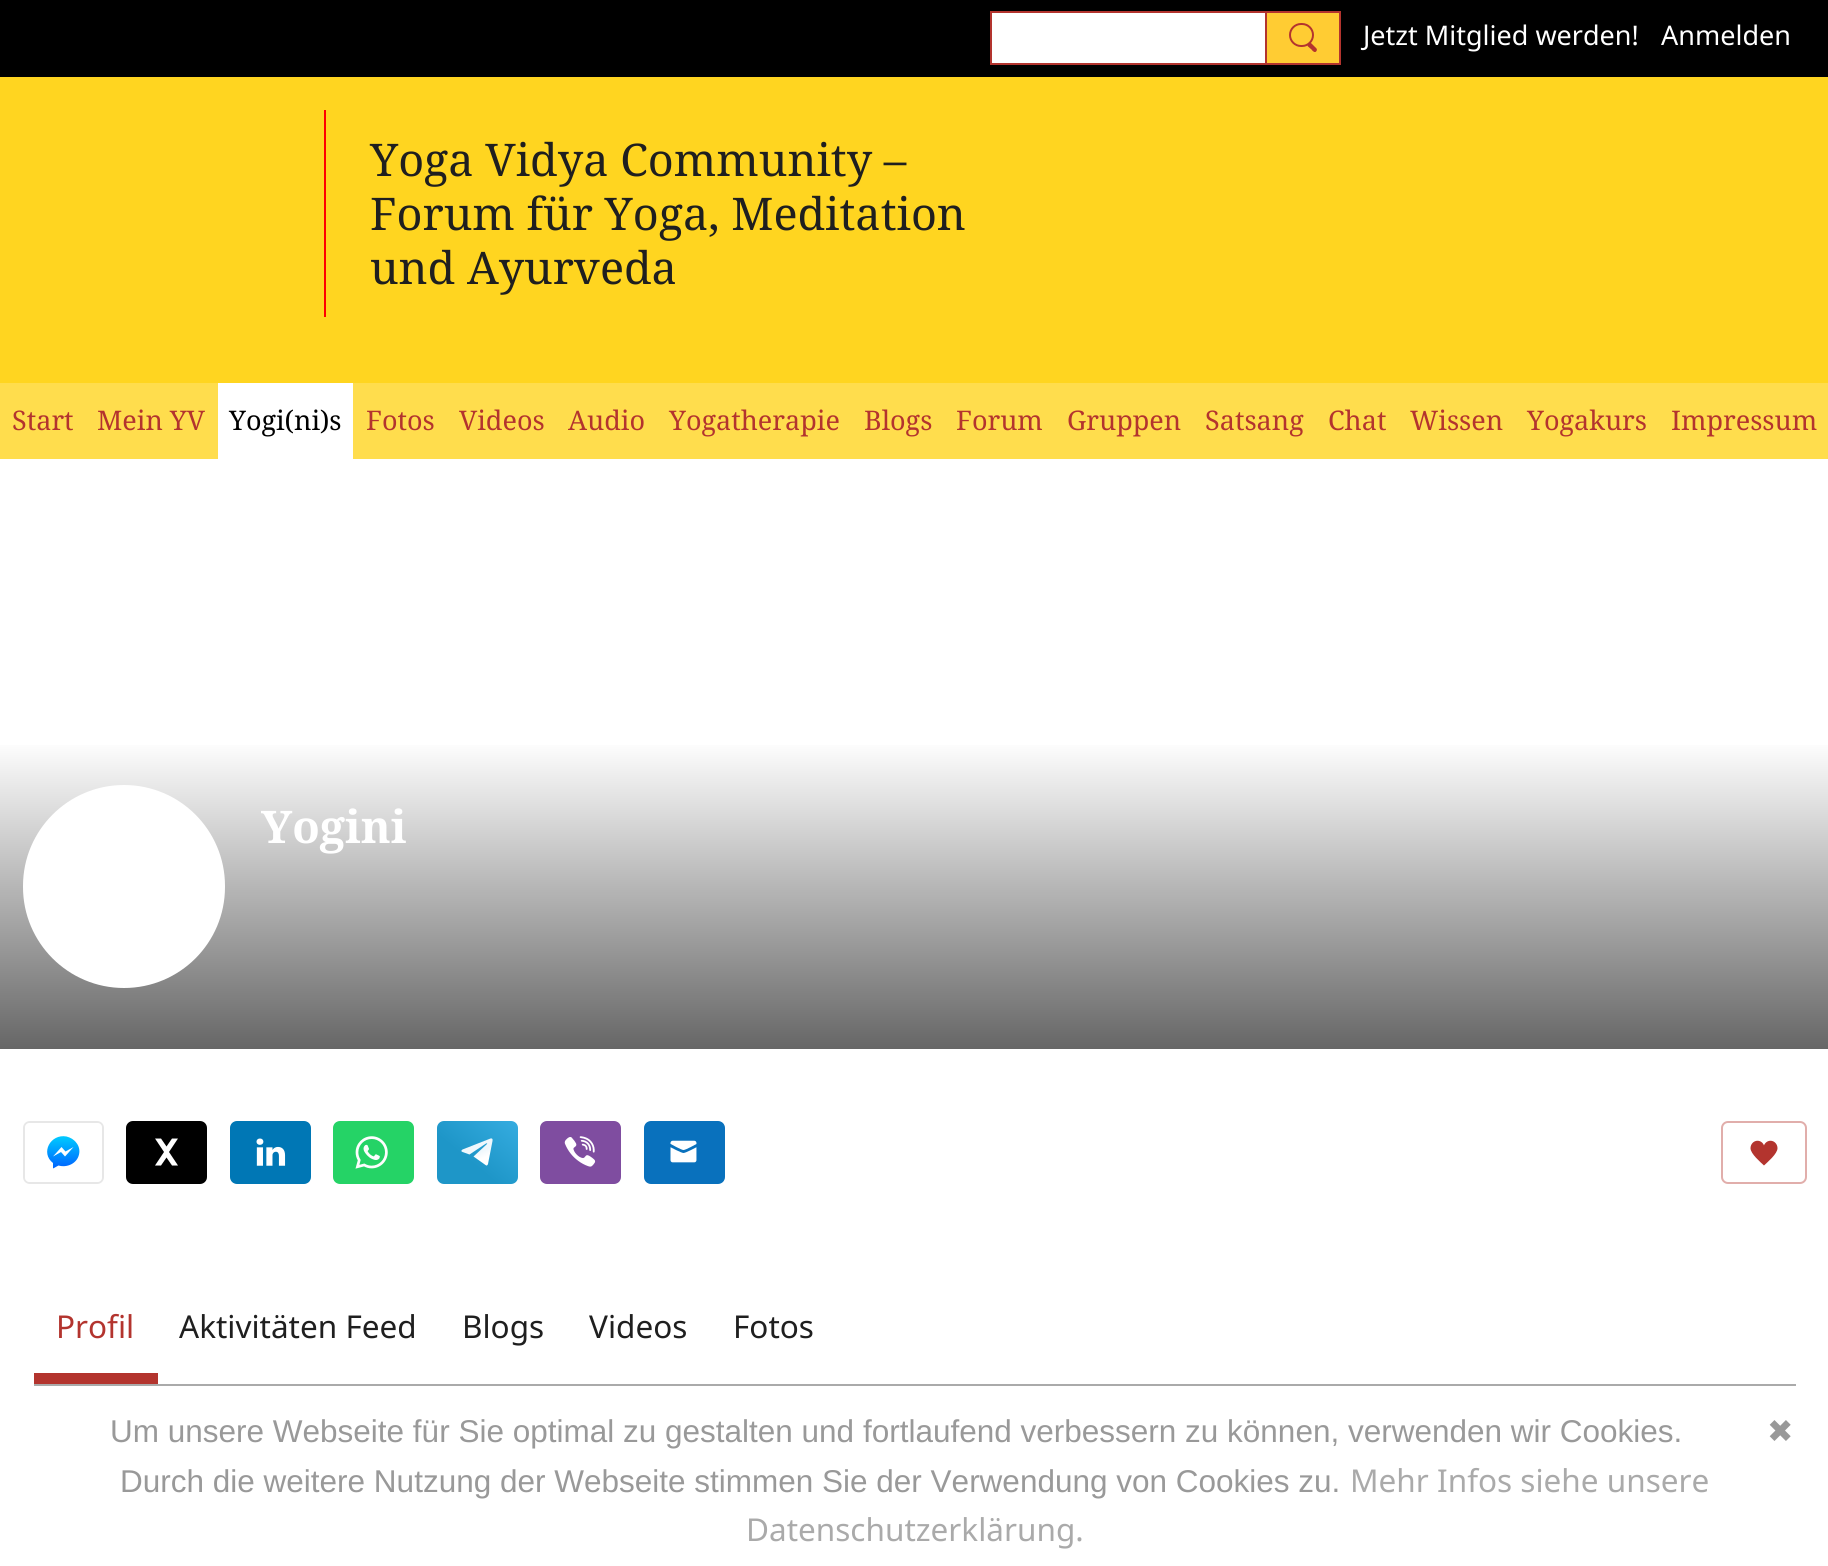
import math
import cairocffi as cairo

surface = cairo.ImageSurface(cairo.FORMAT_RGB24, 1828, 1566)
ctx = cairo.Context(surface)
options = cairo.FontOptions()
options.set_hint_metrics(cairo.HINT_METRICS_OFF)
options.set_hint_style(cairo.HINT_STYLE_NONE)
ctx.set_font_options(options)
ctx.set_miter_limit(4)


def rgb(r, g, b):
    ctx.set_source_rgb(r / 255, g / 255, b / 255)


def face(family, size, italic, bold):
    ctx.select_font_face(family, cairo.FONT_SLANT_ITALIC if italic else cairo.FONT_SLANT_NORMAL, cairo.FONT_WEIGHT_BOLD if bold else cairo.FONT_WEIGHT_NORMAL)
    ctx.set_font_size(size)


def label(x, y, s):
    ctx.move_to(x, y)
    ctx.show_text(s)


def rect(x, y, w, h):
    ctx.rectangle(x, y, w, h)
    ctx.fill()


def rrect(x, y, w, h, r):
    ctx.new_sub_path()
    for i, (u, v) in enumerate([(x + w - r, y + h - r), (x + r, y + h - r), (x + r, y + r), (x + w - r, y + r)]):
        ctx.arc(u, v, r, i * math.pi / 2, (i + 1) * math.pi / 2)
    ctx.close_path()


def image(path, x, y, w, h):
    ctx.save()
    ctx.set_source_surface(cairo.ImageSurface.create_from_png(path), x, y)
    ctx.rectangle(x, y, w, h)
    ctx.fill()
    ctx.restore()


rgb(255, 213, 32)
ctx.paint()
rgb(0, 0, 0)
rect(0, 0, 1828, 77)
rgb(255, 255, 255)
ctx.rectangle(991, 12, 275, 52)
ctx.fill_preserve()
rgb(179, 52, 46)
ctx.stroke()
rgb(255, 204, 51)
ctx.rectangle(1266, 12, 74, 52)
ctx.fill_preserve()
rgb(179, 52, 46)
ctx.stroke()
rrect(1290, 24, 23, 22, 11)
ctx.stroke()
ctx.new_path()
ctx.move_to(1311.5, 43.5)
ctx.line_to(1316.5, 48.5)
ctx.curve_to(1317, 49, 1317, 50, 1316.5, 51)
ctx.curve_to(1315, 53.5, 1312.5, 51, 1311.5, 49.5)
ctx.line_to(1308, 46.5)
ctx.curve_to(1306, 44.5, 1309.5, 41, 1311.5, 43.5)
ctx.close_path()
ctx.fill()
face('Noto Sans', 27, 0, 0)
rgb(255, 255, 255)
label(1363, 45, 'Jetzt Mitglied werden!')
label(1661, 45, 'Anmelden')
rgb(255, 0, 0)
rect(324, 110, 2, 207)
face('Noto Serif', 45, 0, 0)
rgb(31, 31, 31)
label(370, 176, 'Yoga Vidya Community –')
label(370, 230, 'Forum für Yoga, Meditation')
label(370, 284, 'und Ayurveda')
rgb(255, 221, 77)
rect(0, 383, 1828, 76)
face('Noto Serif', 27, 0, 0)
rgb(179, 52, 46)
label(12, 430, 'Start')
label(97, 430, 'Mein YV')
rgb(255, 255, 255)
rect(218, 383, 135, 76)
rgb(0, 0, 0)
label(229, 430, 'Yogi(ni)s')
rgb(179, 52, 46)
label(366, 430, 'Fotos')
label(459, 430, 'Videos')
label(568, 430, 'Audio')
label(669, 430, 'Yogatherapie')
label(864, 430, 'Blogs')
label(956, 430, 'Forum')
label(1067, 430, 'Gruppen')
label(1205, 430, 'Satsang')
label(1328, 430, 'Chat')
label(1410, 430, 'Wissen')
label(1527, 430, 'Yogakurs')
label(1671, 430, 'Impressum')
rgb(255, 255, 255)
rect(0, 459, 1828, 1107)
gradient = cairo.LinearGradient(915, 740, 915, 1049)
gradient.add_color_stop_rgba(0, 1, 1, 1, 1)
gradient.add_color_stop_rgba(1, 0.4, 0.4, 0.4, 1)
ctx.set_source(gradient)
rect(0, 745, 1828, 304)
rgb(255, 255, 255)
rrect(23, 785, 202, 203, 101)
ctx.fill()
face('Noto Serif', 45, 0, 1)
label(261, 843, 'Yogini')
rgb(231, 231, 231)
ctx.set_fill_rule(cairo.FILL_RULE_EVEN_ODD)
ctx.new_path()
ctx.move_to(30, 1121)
ctx.curve_to(26, 1121, 23, 1124, 23, 1128)
ctx.line_to(23, 1177)
ctx.curve_to(23, 1181, 26, 1184, 30, 1184)
ctx.line_to(97, 1184)
ctx.curve_to(101, 1184, 104, 1181, 104, 1177)
ctx.line_to(104, 1128)
ctx.curve_to(104, 1124, 101, 1121, 97, 1121)
ctx.close_path()
ctx.move_to(29, 1123)
ctx.curve_to(27, 1123, 25, 1125, 25, 1127)
ctx.line_to(25, 1178)
ctx.curve_to(25, 1180, 27, 1182, 29, 1182)
ctx.line_to(98, 1182)
ctx.curve_to(100, 1182, 102, 1180, 102, 1178)
ctx.line_to(102, 1127)
ctx.curve_to(102, 1125, 100, 1123, 98, 1123)
ctx.close_path()
ctx.fill()
gradient = cairo.LinearGradient(63, 1138, 63, 1167)
gradient.add_color_stop_rgba(0, 0, 0.776, 1, 1)
gradient.add_color_stop_rgba(1, 0, 0.408, 1, 1)
ctx.set_source(gradient)
ctx.set_fill_rule(cairo.FILL_RULE_WINDING)
ctx.new_path()
ctx.move_to(53, 1163)
ctx.line_to(53, 1168.5)
ctx.line_to(58.5, 1165.5)
ctx.curve_to(67, 1168, 77, 1163.5, 79, 1154.5)
ctx.curve_to(80, 1150.5, 79, 1146, 76.5, 1143)
ctx.curve_to(74, 1139.5, 70.5, 1137.5, 66.5, 1136.5)
ctx.curve_to(50.5, 1133.5, 40, 1153, 53, 1163)
ctx.close_path()
ctx.fill()
rgb(255, 255, 255)
ctx.new_path()
ctx.move_to(61.5, 1147)
ctx.line_to(53, 1156.5)
ctx.line_to(61, 1152)
ctx.line_to(65, 1156.5)
ctx.line_to(73.5, 1147)
ctx.line_to(65.5, 1151.5)
ctx.close_path()
ctx.fill()
rgb(0, 0, 0)
rrect(126, 1121, 81, 63, 7)
ctx.fill()
rgb(255, 255, 255)
ctx.set_fill_rule(cairo.FILL_RULE_EVEN_ODD)
ctx.new_path()
ctx.move_to(155, 1138.5)
ctx.line_to(164, 1152)
ctx.line_to(155, 1165.5)
ctx.line_to(161, 1165.5)
ctx.line_to(166.5, 1157.5)
ctx.line_to(172, 1165.5)
ctx.line_to(178, 1165.5)
ctx.line_to(169, 1152)
ctx.line_to(178, 1138.5)
ctx.line_to(172, 1138.5)
ctx.line_to(166.5, 1146.5)
ctx.line_to(161, 1138.5)
ctx.close_path()
ctx.fill()
image('image0.png', 230, 1121, 81, 63)
image('image1.png', 333, 1121, 81, 63)
gradient = cairo.LinearGradient(525, 1121, 483, 1172)
gradient.add_color_stop_rgba(0, 0.216, 0.682, 0.886, 1)
gradient.add_color_stop_rgba(1, 0.118, 0.588, 0.784, 1)
ctx.set_source(gradient)
rrect(437, 1121, 81, 63, 7)
ctx.fill()
gradient = cairo.LinearGradient(481, 1151, 484, 1158)
gradient.add_color_stop_rgba(0, 0.937, 0.969, 0.988, 1)
gradient.add_color_stop_rgba(1, 1, 1, 1, 1)
ctx.set_source(gradient)
ctx.set_fill_rule(cairo.FILL_RULE_WINDING)
ctx.new_path()
ctx.move_to(473.5, 1156.5)
ctx.line_to(485.5, 1165)
ctx.curve_to(486.5, 1166, 487.5, 1165.5, 488, 1164)
ctx.line_to(492.5, 1141)
ctx.curve_to(493, 1139, 492, 1138, 490.5, 1138.5)
ctx.line_to(462.5, 1149.5)
ctx.curve_to(461, 1150.5, 461, 1151.5, 462.5, 1152)
ctx.line_to(469.5, 1154.5)
ctx.line_to(486, 1143.5)
ctx.curve_to(487, 1143, 487.5, 1143.5, 487, 1144)
ctx.fill()
image('image2.png', 540, 1121, 81, 63)
image('image3.png', 644, 1121, 81, 63)
rrect(1722, 1122, 84, 61, 6)
rgb(225, 174, 171)
ctx.stroke()
image('image4.png', 1750, 1140, 28, 26)
rgb(170, 170, 170)
rect(34, 1384, 1762, 2)
rgb(179, 52, 46)
rect(34, 1373, 124, 11)
face('Noto Sans', 31.5, 0, 0)
label(56, 1338, 'Profil')
rgb(31, 31, 31)
label(179, 1338, 'Aktivitäten Feed')
label(462, 1338, 'Blogs')
label(589, 1338, 'Videos')
label(733, 1338, 'Fotos')
face('Liberation Sans', 31.5, 0, 0)
rgb(153, 153, 153)
label(110, 1442, 'Um unsere Webseite für Sie optimal zu gestalten und fortlaufend verbessern zu können, verwenden wir Cookies.')
face('DejaVu Sans', 31.5, 0, 0)
label(1767, 1442, '✖')
face('Liberation Sans', 31.5, 0, 0)
label(120, 1492, 'Durch die weitere Nutzung der Webseite stimmen Sie der Verwendung von Cookies zu.')
face('Noto Sans', 31.5, 0, 0)
rgb(170, 170, 170)
label(1350, 1492, 'Mehr Infos siehe unsere')
label(746, 1541, 'Datenschutzerklärung.')
surface.write_to_png('render.png')
